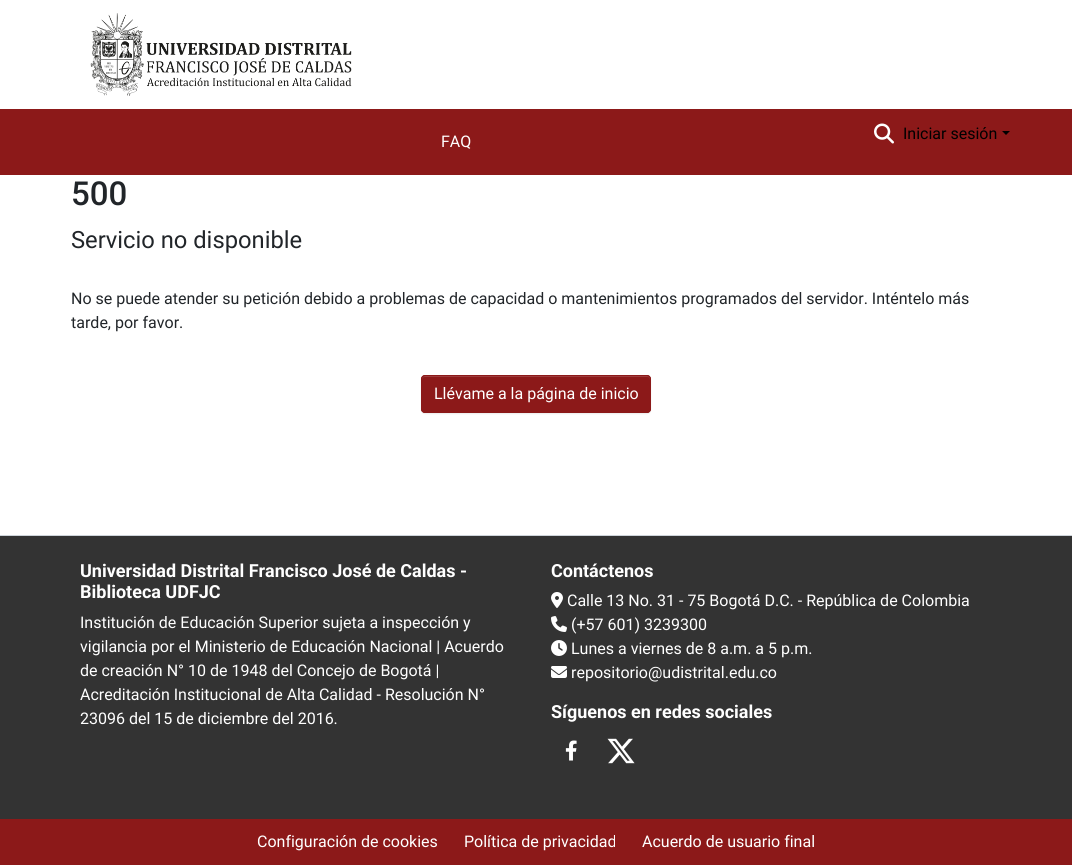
import math
import cairocffi as cairo

surface = cairo.ImageSurface(cairo.FORMAT_RGB24, 1072, 865)
ctx = cairo.Context(surface)
options = cairo.FontOptions()
options.set_hint_metrics(cairo.HINT_METRICS_OFF)
options.set_hint_style(cairo.HINT_STYLE_NONE)
ctx.set_font_options(options)
ctx.set_miter_limit(4)


def rgb(r, g, b):
    ctx.set_source_rgb(r / 255, g / 255, b / 255)


def face(family, size, italic, bold):
    ctx.select_font_face(family, cairo.FONT_SLANT_ITALIC if italic else cairo.FONT_SLANT_NORMAL, cairo.FONT_WEIGHT_BOLD if bold else cairo.FONT_WEIGHT_NORMAL)
    ctx.set_font_size(size)


def label(x, y, s):
    ctx.move_to(x, y)
    ctx.show_text(s)


def rect(x, y, w, h):
    ctx.rectangle(x, y, w, h)
    ctx.fill()


def rrect(x, y, w, h, r):
    ctx.new_sub_path()
    for i, (u, v) in enumerate([(x + w - r, y + h - r), (x + r, y + h - r), (x + r, y + r), (x + w - r, y + r)]):
        ctx.arc(u, v, r, i * math.pi / 2, (i + 1) * math.pi / 2)
    ctx.close_path()


def soft_shadow(x, y, w, h, r, blur, alpha):
    ctx.push_group_with_content(cairo.CONTENT_ALPHA)
    ctx.set_operator(cairo.OPERATOR_SOURCE)
    for i in range(15, -16, -2):
        e = blur * i / 6
        if min(w, h) + 2 * e > 0:
            ctx.set_source_rgba(0, 0, 0, alpha * math.erfc((i - 1) / 8.5) / 2)
            rrect(x - e, y - e, w + 2 * e, h + 2 * e, max(0, min(r + e + blur * .6, min(w, h) / 2 + e)))
            ctx.fill()
    ctx.mask(ctx.pop_group())


def image(path, x, y, w, h):
    ctx.save()
    ctx.set_source_surface(cairo.ImageSurface.create_from_png(path), x, y)
    ctx.rectangle(x, y, w, h)
    ctx.fill()
    ctx.restore()


rgb(255, 255, 255)
ctx.paint()
image('image0.png', 90, 13, 262, 83)
rgb(140, 25, 25)
rect(0, 109, 1072, 66)
image('image1.png', 874, 123, 20, 21)
face('Roboto', 16, 0, 0)
rgb(0, 0, 0)
label(903, 139, 'Iniciar sesión')
ctx.new_path()
ctx.move_to(1002, 131)
ctx.line_to(1010, 131)
ctx.line_to(1006, 135)
ctx.close_path()
ctx.fill()
rgb(255, 255, 255)
label(441, 147, 'FAQ')
face('Roboto Medium', 33, 0, 0)
rgb(33, 37, 41)
label(71, 205, '500')
face('Roboto', 23.75, 0, 0)
label(71, 248, 'Servicio no disponible')
face('Roboto', 16, 0, 0)
label(71, 304, 'No se puede atender su petición debido a problemas de capacidad o mantenimientos programados del servidor. Inténtelo más')
label(71, 328, 'tarde, por favor.')
rgb(0, 0, 0)
soft_shadow(421, 376, 230, 38, 4, 0.5, 0.07)
rgb(140, 25, 25)
rrect(421, 375, 230, 38, 4)
ctx.fill()
rgb(157, 60, 60)
ctx.new_path()
ctx.move_to(425, 377)
ctx.line_to(647, 377)
ctx.curve_to(649, 377, 650, 378, 650, 380)
ctx.line_to(650, 379)
ctx.curve_to(650, 377, 649, 376, 647, 376)
ctx.line_to(425, 376)
ctx.curve_to(423, 376, 422, 377, 422, 379)
ctx.line_to(422, 380)
ctx.curve_to(422, 378, 423, 377, 425, 377)
ctx.close_path()
ctx.fill()
rrect(421.5, 375.5, 229, 37, 3.5)
rgb(140, 25, 25)
ctx.set_line_width(1)
ctx.stroke()
rgb(255, 255, 255)
label(434, 399, 'Llévame a la página de inicio')
rgb(140, 25, 25)
rect(0, 819, 1072, 46)
rgb(206, 212, 218)
rect(0, 535, 1072, 1)
rgb(51, 51, 51)
rect(0, 536, 1072, 283)
face('Roboto', 18, 0, 1)
rgb(255, 255, 255)
label(80, 577, 'Universidad Distrital Francisco José de Caldas -')
label(80, 598, 'Biblioteca UDFJC')
face('Roboto', 16, 0, 0)
label(80, 628, 'Institución de Educación Superior sujeta a inspección y')
label(80, 652, 'vigilancia por el Ministerio de Educación Nacional | Acuerdo')
label(80, 676, 'de creación N° 10 de 1948 del Concejo de Bogotá |')
label(80, 700, 'Acreditación Institucional de Alta Calidad - Resolución N°')
label(80, 724, '23096 del 15 de diciembre del 2016.')
face('Roboto', 18, 0, 1)
label(551, 577, 'Contáctenos')
image('image2.png', 551, 592, 12, 16)
face('Roboto', 16, 0, 0)
label(567, 606, 'Calle 13 No. 31 - 75 Bogotá D.C. - República de Colombia')
image('image3.png', 551, 616, 16, 16)
label(571, 630, '(+57 601) 3239300')
image('image4.png', 551, 640, 16, 16)
label(571, 654, 'Lunes a viernes de 8 a.m. a 5 p.m.')
image('image5.png', 551, 666, 16, 12)
label(571, 678, 'repositorio@udistrital.edu.co')
face('Roboto', 18, 0, 1)
label(551, 718, 'Síguenos en redes sociales')
image('image6.png', 565, 740, 12, 21)
image('image7.png', 607, 738, 28, 26)
face('Roboto', 16, 0, 0)
label(257, 847, 'Configuración de cookies')
label(464, 847, 'Política de privacidad')
label(642, 847, 'Acuerdo de usuario final')
surface.write_to_png('render.png')
